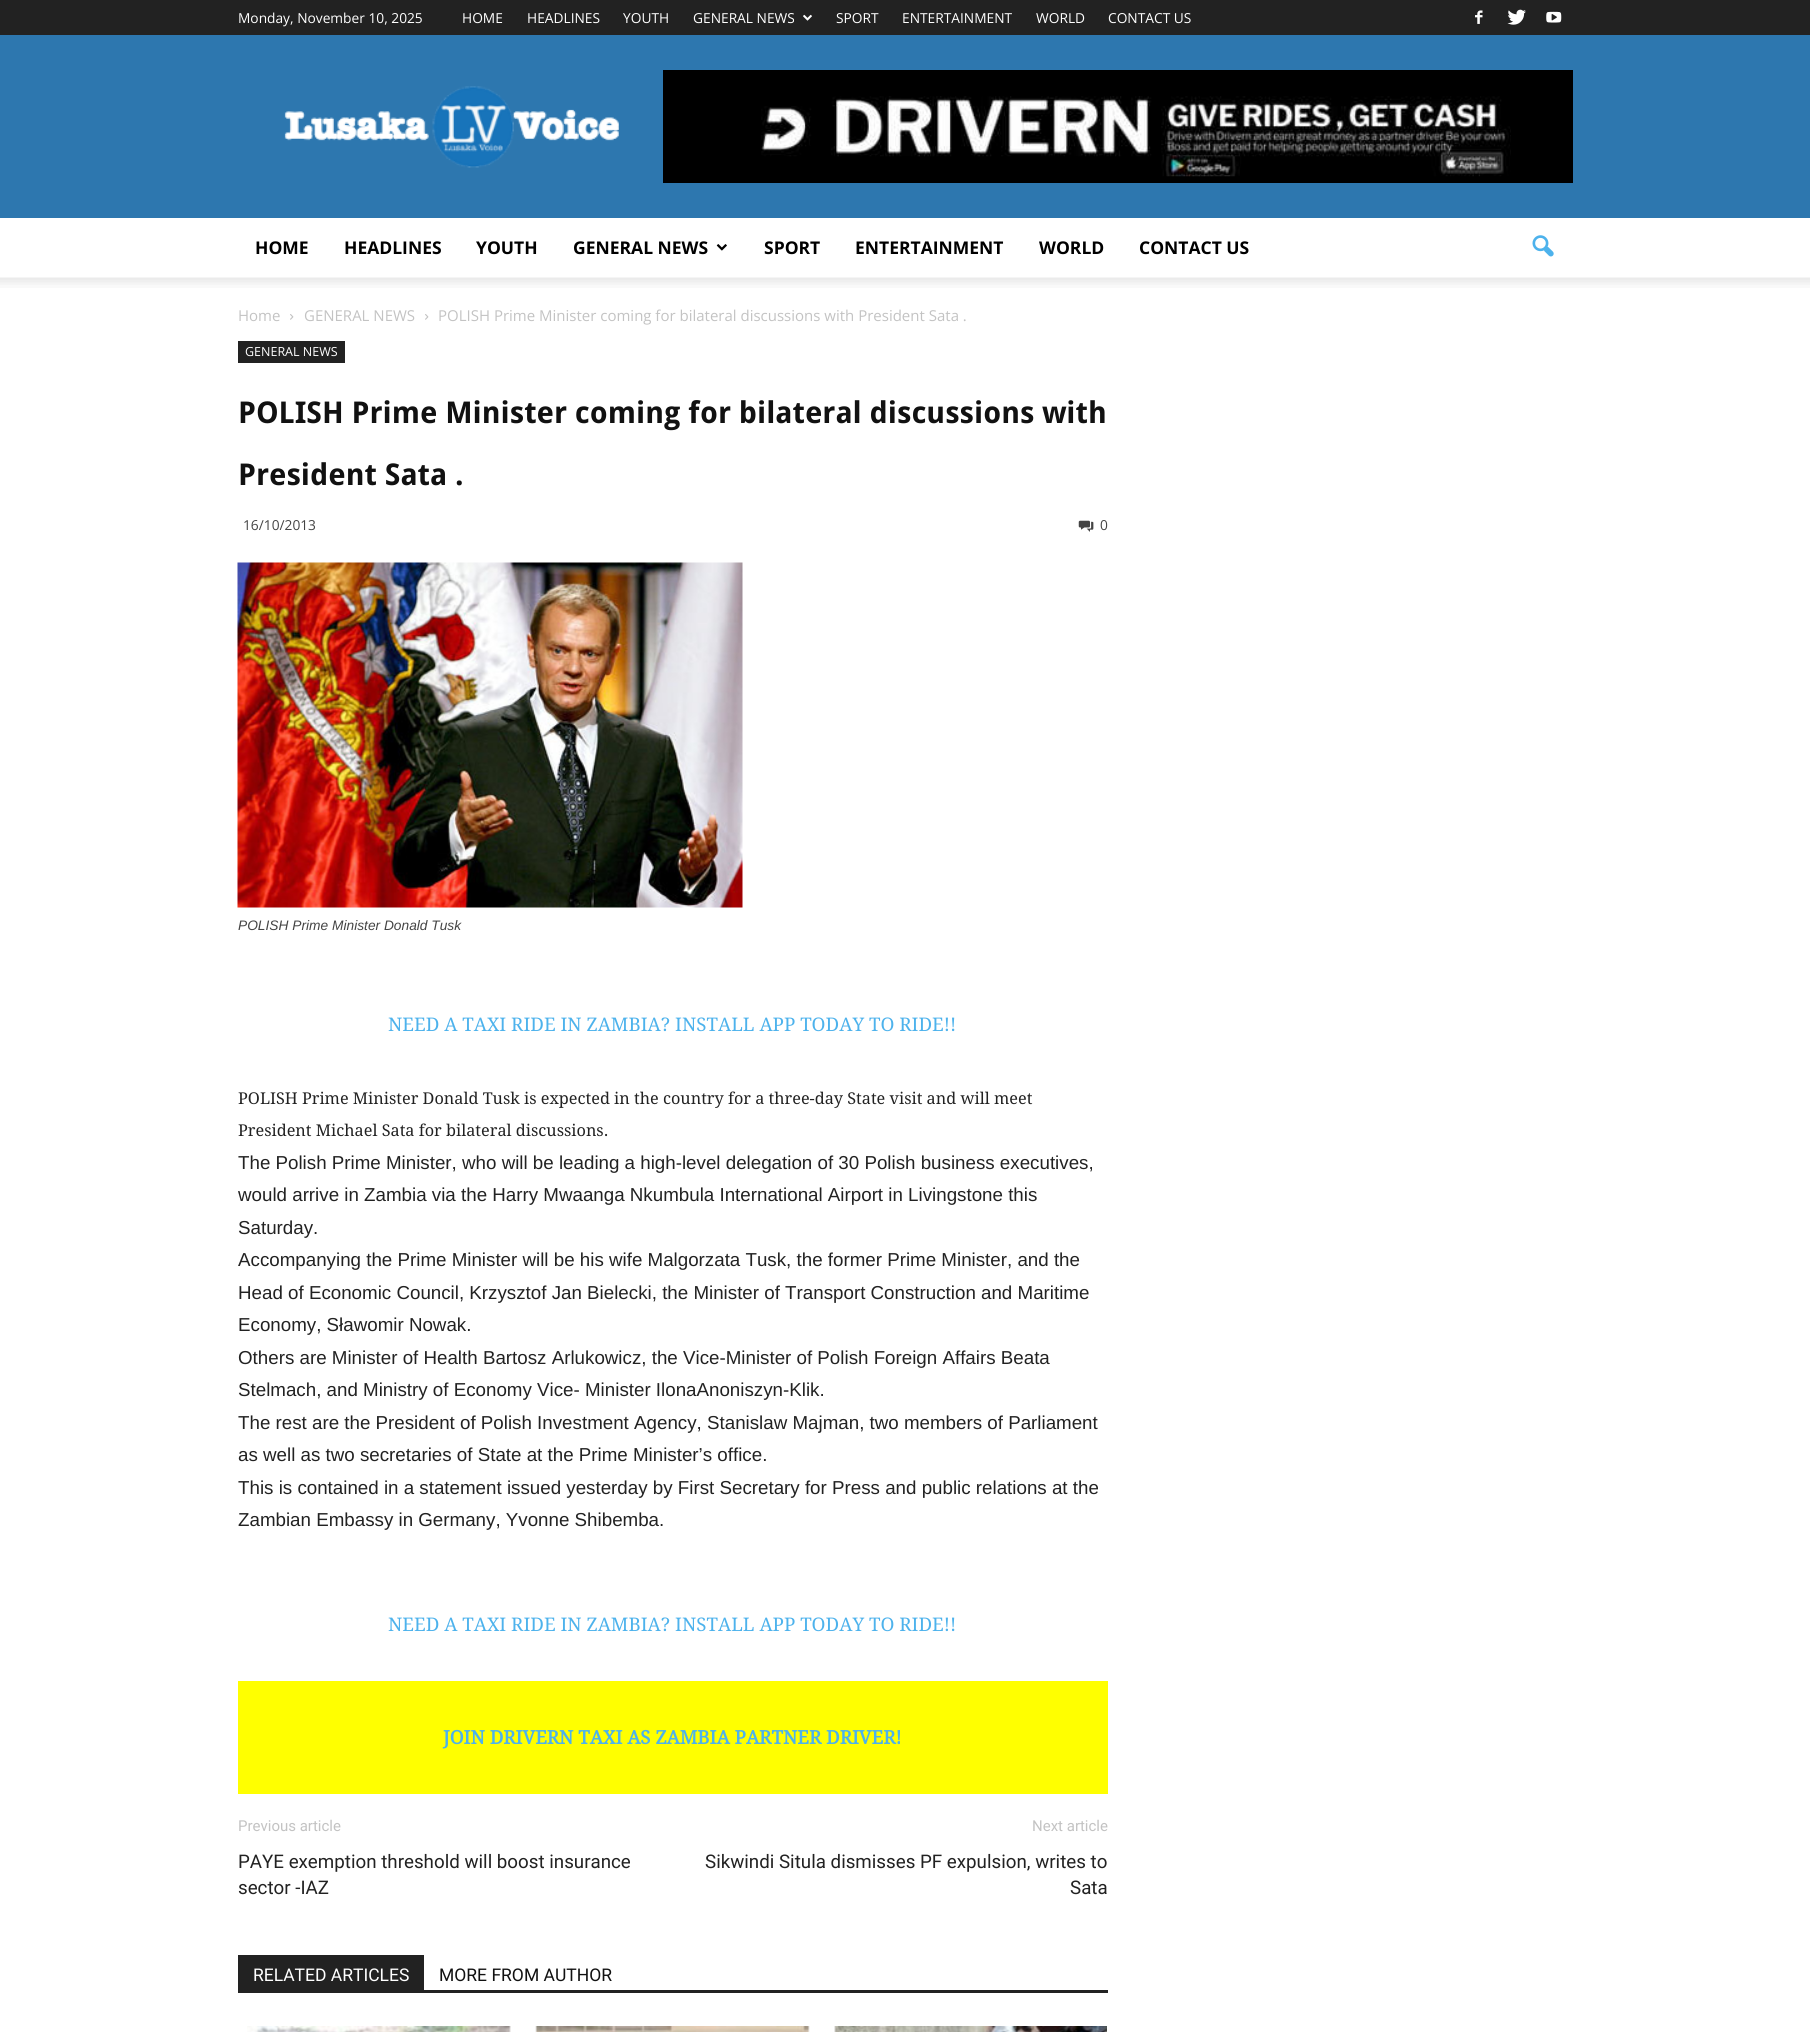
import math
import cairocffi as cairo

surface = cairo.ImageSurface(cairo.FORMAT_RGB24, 1810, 2032)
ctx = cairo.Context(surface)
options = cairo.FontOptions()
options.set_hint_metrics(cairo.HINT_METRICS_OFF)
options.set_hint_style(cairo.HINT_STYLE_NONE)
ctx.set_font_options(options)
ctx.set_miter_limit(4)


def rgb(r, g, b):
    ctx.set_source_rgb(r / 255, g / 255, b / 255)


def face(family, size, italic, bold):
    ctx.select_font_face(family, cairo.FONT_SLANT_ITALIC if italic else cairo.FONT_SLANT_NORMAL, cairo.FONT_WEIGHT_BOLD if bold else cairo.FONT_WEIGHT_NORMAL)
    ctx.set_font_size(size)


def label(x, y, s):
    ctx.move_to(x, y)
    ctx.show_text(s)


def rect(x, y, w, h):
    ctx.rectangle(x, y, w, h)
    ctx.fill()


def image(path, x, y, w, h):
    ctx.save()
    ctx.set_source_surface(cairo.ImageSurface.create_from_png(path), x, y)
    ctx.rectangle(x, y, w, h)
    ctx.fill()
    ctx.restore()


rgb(255, 255, 255)
ctx.paint()
rgb(34, 34, 34)
rect(0, 0, 1810, 35)
face('Open Sans', 13.75, 0, 0)
rgb(255, 255, 255)
label(238, 23, 'Monday, November 10, 2025')
label(462, 23, 'HOME')
label(527, 23, 'HEADLINES')
label(623, 23, 'YOUTH')
label(693, 23, 'GENERAL NEWS')
image('image0.png', 803, 14, 9, 7)
label(836, 23, 'SPORT')
label(902, 23, 'ENTERTAINMENT')
label(1036, 23, 'WORLD')
label(1108, 23, 'CONTACT US')
image('image1.png', 1475, 10, 8, 14)
image('image2.png', 1507, 9, 19, 16)
image('image3.png', 1546, 11, 16, 12)
rgb(45, 119, 175)
rect(0, 35, 1810, 183)
image('image4.png', 284, 86, 335, 82)
rgb(0, 0, 0)
rect(663, 70, 910, 113)
image('image5.png', 761, 96, 750, 81)
face('Open Sans', 17.5, 0, 1)
label(255, 254, 'HOME')
label(344, 254, 'HEADLINES')
label(476, 254, 'YOUTH')
label(573, 254, 'GENERAL NEWS')
image('image6.png', 716, 244, 11, 7)
label(764, 254, 'SPORT')
label(855, 254, 'ENTERTAINMENT')
label(1039, 254, 'WORLD')
label(1139, 254, 'CONTACT US')
image('image7.png', 1532, 235, 22, 22)
image('image8.png', 0, 277, 1810, 11)
face('Open Sans', 15, 0, 0)
rgb(195, 195, 195)
label(238, 321, 'Home')
image('image9.png', 290, 314, 4, 6)
label(304, 321, 'GENERAL NEWS')
image('image9.png', 425, 314, 4, 6)
label(438, 321, 'POLISH Prime Minister coming for bilateral discussions with President Sata .')
rgb(34, 34, 34)
rect(238, 341, 107, 22)
face('Open Sans', 12.5, 0, 0)
rgb(255, 255, 255)
label(245, 356, 'GENERAL NEWS')
face('Droid Sans', 30, 0, 1)
rgb(17, 17, 17)
label(238, 423, 'POLISH Prime Minister coming for bilateral discussions with')
label(238, 485, 'President Sata .')
face('Open Sans', 13.75, 0, 0)
rgb(68, 68, 68)
label(243, 530, '16/10/2013')
image('image10.png', 1078, 520, 16, 12)
label(1100, 530, '0')
image('image11.png', 237, 562, 506, 346)
face('Liberation Sans', 13.75, 1, 0)
label(238, 930, 'POLISH Prime Minister Donald Tusk')
face('Droid Serif', 18.75, 0, 0)
rgb(77, 178, 236)
label(388, 1031, 'NEED A TAXI RIDE IN ZAMBIA? INSTALL APP TODAY TO RIDE!!')
face('Droid Serif', 16.25, 0, 0)
rgb(34, 34, 34)
label(238, 1104, 'POLISH Prime Minister Donald Tusk is expected in the country for a three-day State visit and will meet')
label(238, 1136, 'President Michael Sata for bilateral discussions.')
face('Liberation Sans', 18.75, 0, 0)
label(238, 1169, 'The Polish Prime Minister, who will be leading a high-level delegation of 30 Polish business executives,')
label(238, 1201, 'would arrive in Zambia via the Harry Mwaanga Nkumbula International Airport in Livingstone this')
label(238, 1234, 'Saturday.')
label(238, 1266, 'Accompanying the Prime Minister will be his wife Malgorzata Tusk, the former Prime Minister, and the')
label(238, 1299, 'Head of Economic Council, Krzysztof Jan Bielecki, the Minister of Transport Construction and Maritime')
label(238, 1331, 'Economy, Sławomir Nowak.')
label(238, 1364, 'Others are Minister of Health Bartosz Arlukowicz, the Vice-Minister of Polish Foreign Affairs Beata')
label(238, 1396, 'Stelmach, and Ministry of Economy Vice- Minister IlonaAnoniszyn-Klik.')
label(238, 1429, 'The rest are the President of Polish Investment Agency, Stanislaw Majman, two members of Parliament')
label(238, 1461, 'as well as two secretaries of State at the Prime Minister’s office.')
label(238, 1494, 'This is contained in a statement issued yesterday by First Secretary for Press and public relations at the')
label(238, 1526, 'Zambian Embassy in Germany, Yvonne Shibemba.')
face('Droid Serif', 18.75, 0, 0)
rgb(77, 178, 236)
label(388, 1631, 'NEED A TAXI RIDE IN ZAMBIA? INSTALL APP TODAY TO RIDE!!')
rgb(255, 255, 0)
rect(238, 1681, 870, 113)
face('Droid Serif', 18.75, 0, 1)
rgb(77, 178, 236)
label(443, 1744, 'JOIN DRIVERN TAXI AS ZAMBIA PARTNER DRIVER!')
face('Roboto', 15, 0, 0)
rgb(195, 195, 195)
label(238, 1831, 'Previous article')
face('Roboto', 18.75, 0, 0)
rgb(34, 34, 34)
label(238, 1868, 'PAYE exemption threshold will boost insurance')
label(238, 1894, 'sector -IAZ')
face('Roboto', 15, 0, 0)
rgb(195, 195, 195)
label(1032, 1831, 'Next article')
face('Roboto', 18.75, 0, 0)
rgb(34, 34, 34)
label(705, 1868, 'Sikwindi Situla dismisses PF expulsion, writes to')
label(1070, 1894, 'Sata')
rect(238, 1990, 870, 3)
rect(238, 1955, 186, 35)
face('Roboto', 17.5, 0, 0)
rgb(255, 255, 255)
label(253, 1981, 'RELATED ARTICLES')
rgb(17, 17, 17)
label(439, 1981, 'MORE FROM AUTHOR')
image('image12.png', 247, 2026, 264, 6)
image('image13.png', 535, 2026, 275, 6)
image('image14.png', 834, 2026, 273, 6)
surface.write_to_png('render.png')
